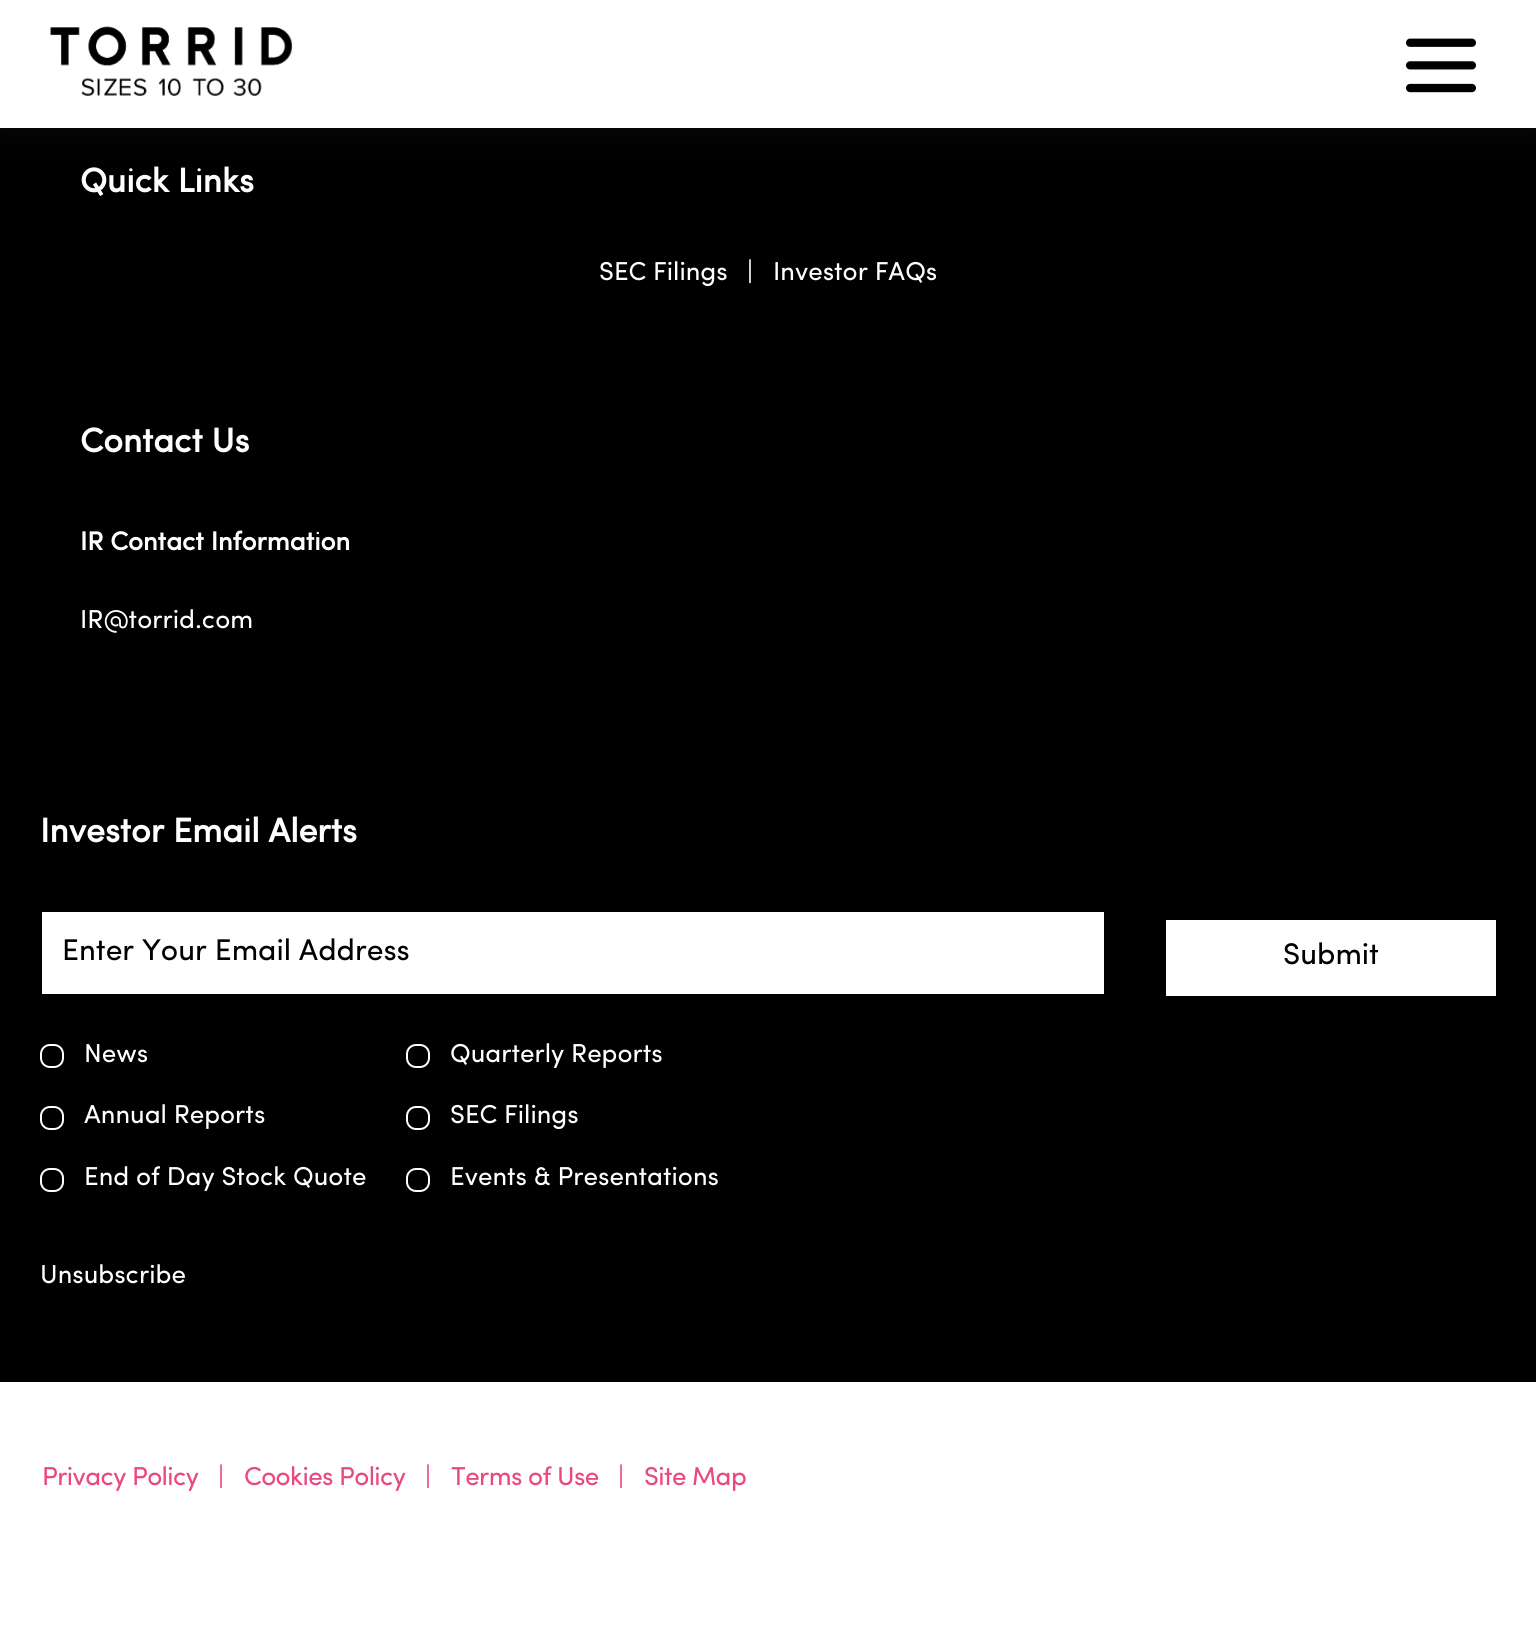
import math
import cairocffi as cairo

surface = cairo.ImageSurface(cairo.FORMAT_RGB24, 1536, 1635)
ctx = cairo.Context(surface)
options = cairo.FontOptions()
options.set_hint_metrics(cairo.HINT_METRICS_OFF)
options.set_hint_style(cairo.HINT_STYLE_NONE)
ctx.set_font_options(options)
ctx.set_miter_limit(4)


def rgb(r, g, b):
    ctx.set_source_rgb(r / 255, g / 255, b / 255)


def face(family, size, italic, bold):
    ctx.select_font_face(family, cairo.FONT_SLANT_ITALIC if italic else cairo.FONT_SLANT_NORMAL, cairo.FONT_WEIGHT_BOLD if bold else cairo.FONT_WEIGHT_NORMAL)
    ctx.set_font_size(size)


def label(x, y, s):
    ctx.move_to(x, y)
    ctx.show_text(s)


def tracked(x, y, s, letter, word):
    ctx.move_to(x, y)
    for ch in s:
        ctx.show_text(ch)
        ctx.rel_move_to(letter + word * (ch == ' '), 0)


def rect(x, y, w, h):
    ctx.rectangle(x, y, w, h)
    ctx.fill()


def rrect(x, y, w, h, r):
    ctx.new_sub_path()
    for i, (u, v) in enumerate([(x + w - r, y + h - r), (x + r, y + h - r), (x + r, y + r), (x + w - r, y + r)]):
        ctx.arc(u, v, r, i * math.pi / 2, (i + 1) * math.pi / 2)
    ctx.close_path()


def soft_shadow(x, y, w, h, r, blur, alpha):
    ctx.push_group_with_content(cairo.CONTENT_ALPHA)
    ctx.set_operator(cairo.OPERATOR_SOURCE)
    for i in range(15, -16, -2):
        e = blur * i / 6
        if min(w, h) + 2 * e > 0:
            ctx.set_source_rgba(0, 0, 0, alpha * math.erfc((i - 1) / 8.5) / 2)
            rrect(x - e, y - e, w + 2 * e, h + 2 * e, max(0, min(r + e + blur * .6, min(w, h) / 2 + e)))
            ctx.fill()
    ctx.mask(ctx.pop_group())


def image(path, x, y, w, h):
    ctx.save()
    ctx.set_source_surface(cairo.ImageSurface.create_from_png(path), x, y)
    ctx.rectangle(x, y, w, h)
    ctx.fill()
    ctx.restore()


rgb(255, 255, 255)
ctx.paint()
rgb(0, 0, 0)
rect(0, 128, 1536, 1254)
rgb(40, 48, 51)
soft_shadow(0, 4, 1536, 128, 0, 20, 0.2)
rgb(255, 255, 255)
rect(0, 0, 1536, 128)
image('image0.png', 50, 26, 243, 70)
image('image1.png', 1406, 38, 70, 55)
face('Sofia', 34, 0, 1)
label(80, 192, 'Quick Links')
face('Sofia', 26, 0, 0)
label(599, 280, 'SEC Filings')
label(747, 280, '|')
label(773, 280, 'Investor FAQs')
face('Sofia', 34, 0, 1)
label(80, 452, 'Contact Us')
face('Sofia', 26, 0, 1)
label(80, 550, 'IR Contact Information')
face('Sofia', 26, 0, 0)
label(80, 628, 'IR@torrid.com')
face('Sofia', 34, 0, 1)
label(40, 842, 'Investor Email Alerts')
rect(42, 912, 1062, 82)
face('Sofia', 30, 0, 0)
rgb(0, 0, 0)
label(62, 960, 'Enter Your Email Address')
rgb(255, 255, 255)
rect(1166, 920, 330, 76)
rgb(0, 0, 0)
label(1283, 964, 'Submit')
rrect(41, 1045, 22, 22, 9)
rgb(255, 255, 255)
ctx.stroke()
face('Sofia', 26, 0, 0)
label(84, 1062, 'News')
rrect(407, 1045, 22, 22, 9)
ctx.stroke()
label(450, 1062, 'Quarterly Reports')
rrect(41, 1107, 22, 22, 9)
ctx.stroke()
label(84, 1123, 'Annual Reports')
rrect(407, 1107, 22, 22, 9)
ctx.stroke()
label(450, 1123, 'SEC Filings')
rrect(41, 1169, 22, 22, 9)
ctx.stroke()
label(84, 1185, 'End of Day Stock Quote')
rrect(407, 1169, 22, 22, 9)
ctx.stroke()
label(450, 1185, 'Events & Presentations')
label(40, 1283, 'Unsubscribe')
rgb(233, 72, 131)
tracked(42, 1485, 'Privacy Policy', -0.6, 0)
tracked(218, 1485, '|', -0.6, 0)
tracked(244, 1485, 'Cookies Policy', -0.6, 0)
tracked(425, 1485, '|', -0.6, 0)
tracked(451, 1485, 'Terms of Use', -0.6, 0)
tracked(618, 1485, '|', -0.6, 0)
tracked(644, 1485, 'Site Map', -0.6, 0)
surface.write_to_png('render.png')
